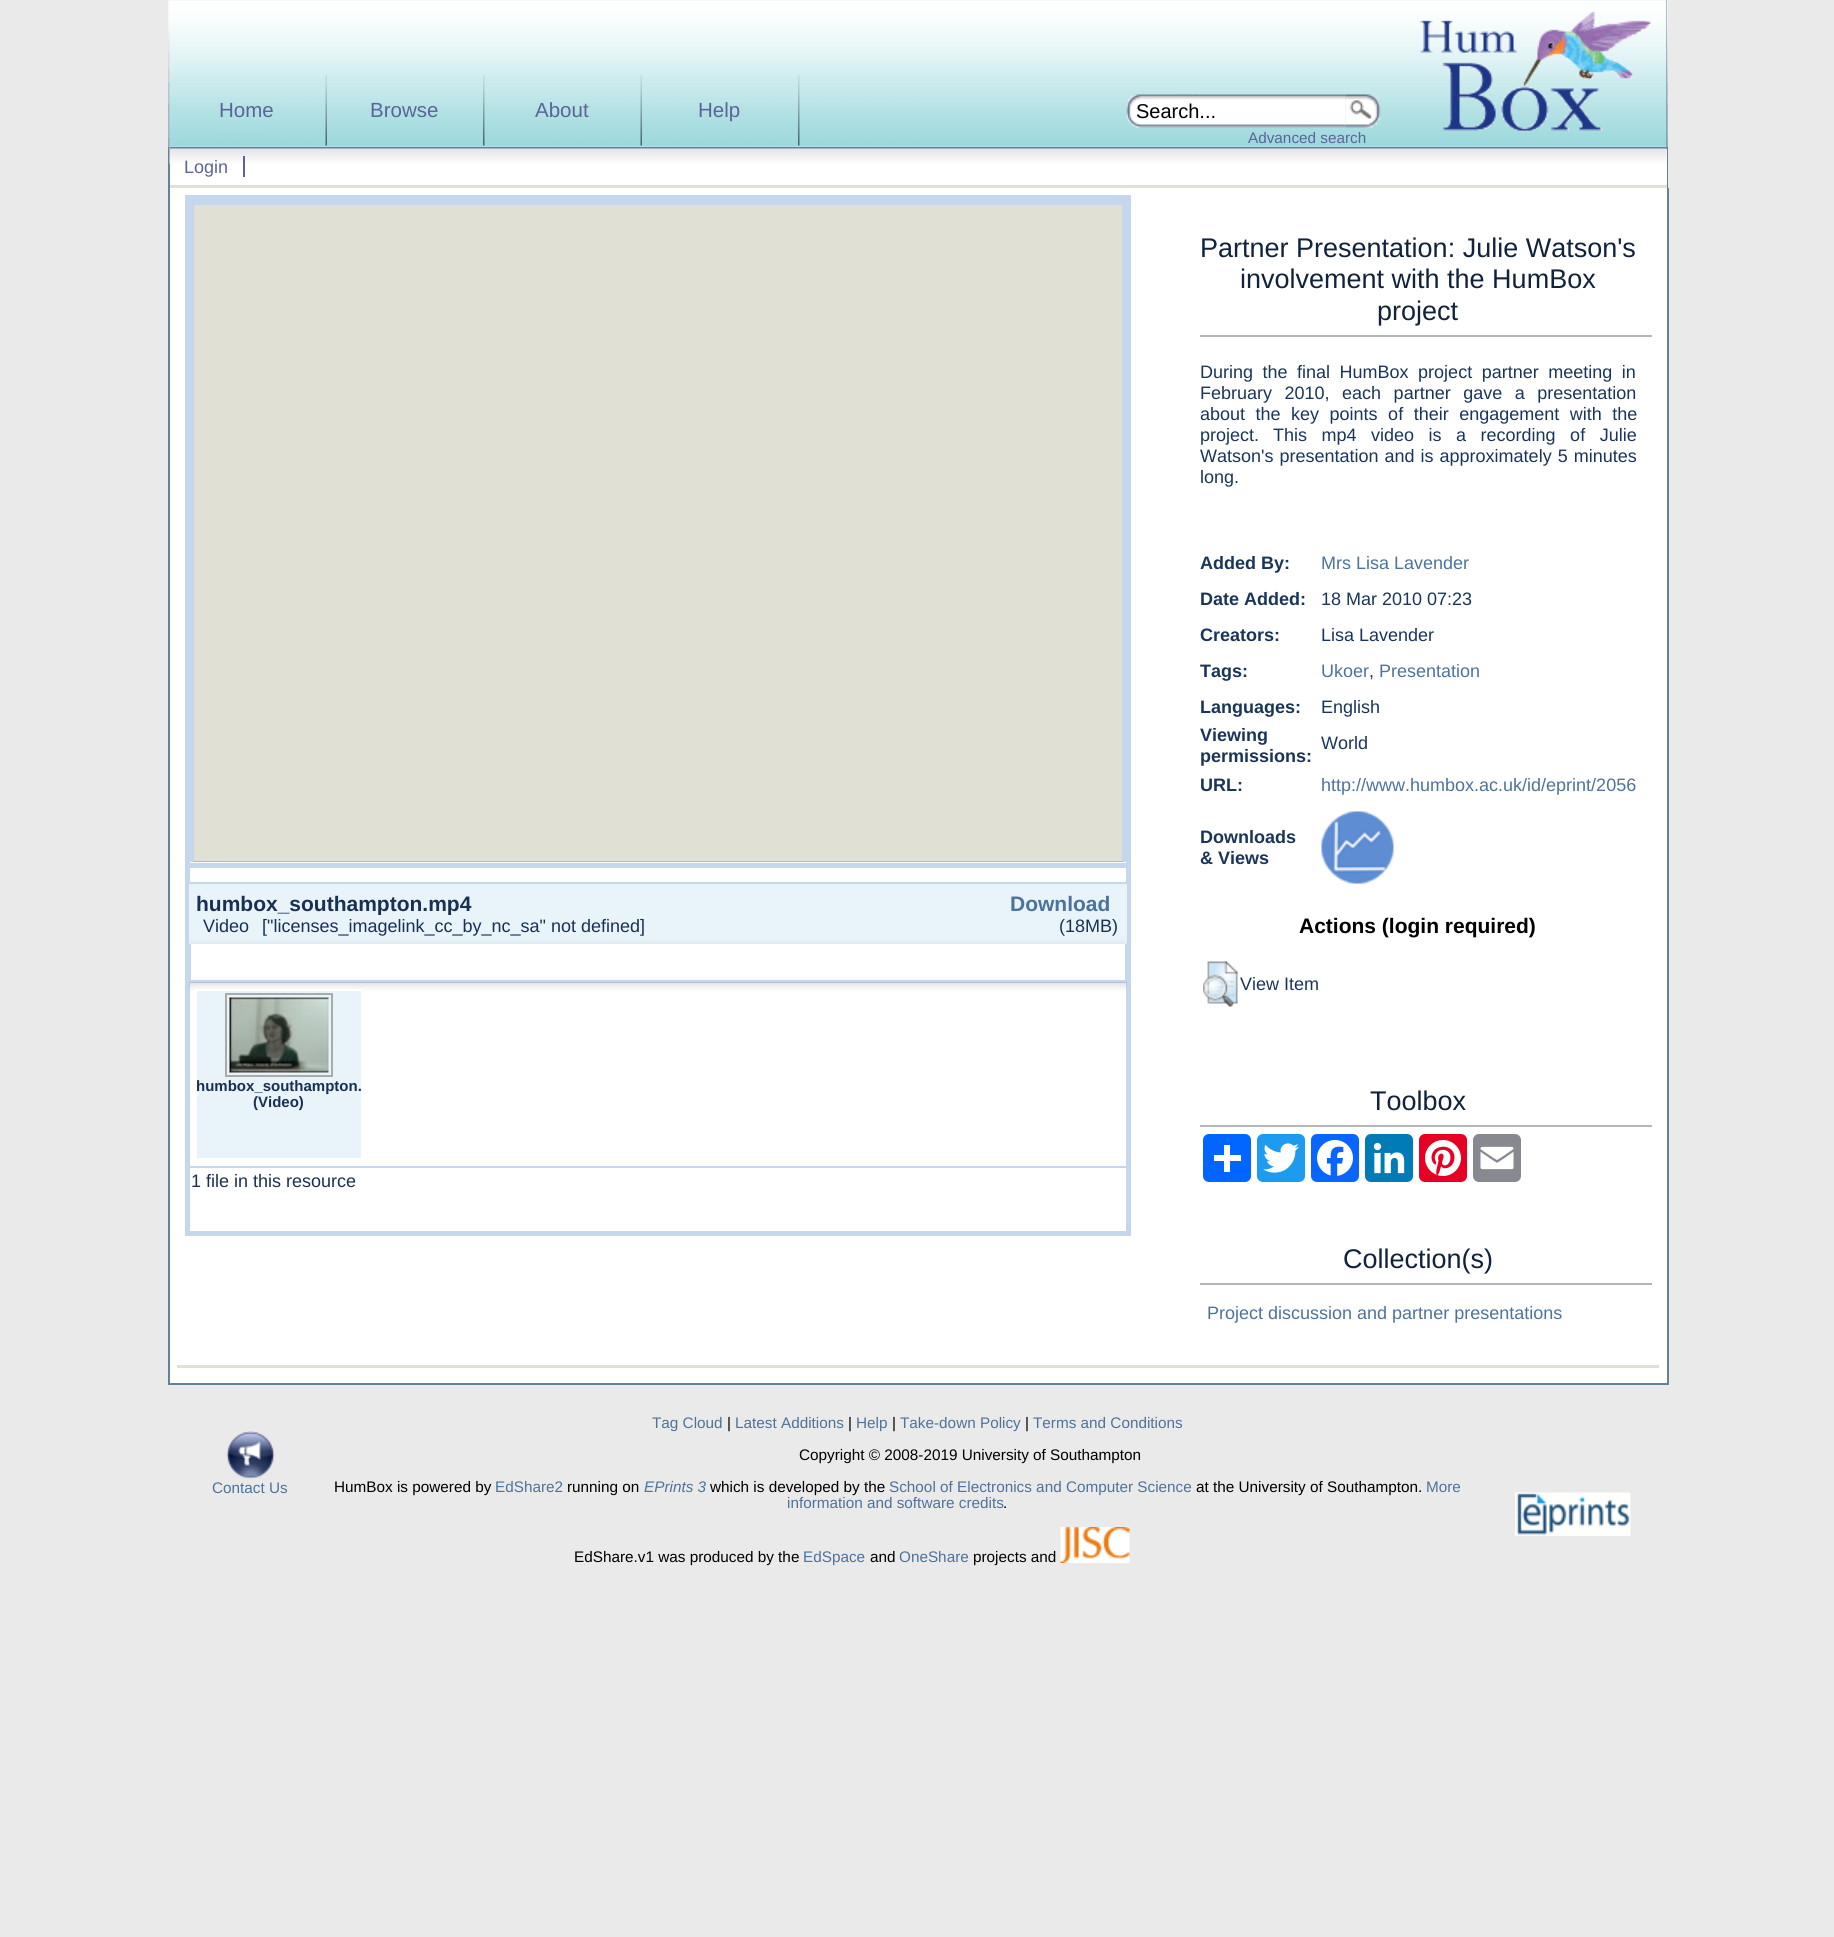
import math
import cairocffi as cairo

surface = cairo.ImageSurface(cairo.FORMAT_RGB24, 1834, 1937)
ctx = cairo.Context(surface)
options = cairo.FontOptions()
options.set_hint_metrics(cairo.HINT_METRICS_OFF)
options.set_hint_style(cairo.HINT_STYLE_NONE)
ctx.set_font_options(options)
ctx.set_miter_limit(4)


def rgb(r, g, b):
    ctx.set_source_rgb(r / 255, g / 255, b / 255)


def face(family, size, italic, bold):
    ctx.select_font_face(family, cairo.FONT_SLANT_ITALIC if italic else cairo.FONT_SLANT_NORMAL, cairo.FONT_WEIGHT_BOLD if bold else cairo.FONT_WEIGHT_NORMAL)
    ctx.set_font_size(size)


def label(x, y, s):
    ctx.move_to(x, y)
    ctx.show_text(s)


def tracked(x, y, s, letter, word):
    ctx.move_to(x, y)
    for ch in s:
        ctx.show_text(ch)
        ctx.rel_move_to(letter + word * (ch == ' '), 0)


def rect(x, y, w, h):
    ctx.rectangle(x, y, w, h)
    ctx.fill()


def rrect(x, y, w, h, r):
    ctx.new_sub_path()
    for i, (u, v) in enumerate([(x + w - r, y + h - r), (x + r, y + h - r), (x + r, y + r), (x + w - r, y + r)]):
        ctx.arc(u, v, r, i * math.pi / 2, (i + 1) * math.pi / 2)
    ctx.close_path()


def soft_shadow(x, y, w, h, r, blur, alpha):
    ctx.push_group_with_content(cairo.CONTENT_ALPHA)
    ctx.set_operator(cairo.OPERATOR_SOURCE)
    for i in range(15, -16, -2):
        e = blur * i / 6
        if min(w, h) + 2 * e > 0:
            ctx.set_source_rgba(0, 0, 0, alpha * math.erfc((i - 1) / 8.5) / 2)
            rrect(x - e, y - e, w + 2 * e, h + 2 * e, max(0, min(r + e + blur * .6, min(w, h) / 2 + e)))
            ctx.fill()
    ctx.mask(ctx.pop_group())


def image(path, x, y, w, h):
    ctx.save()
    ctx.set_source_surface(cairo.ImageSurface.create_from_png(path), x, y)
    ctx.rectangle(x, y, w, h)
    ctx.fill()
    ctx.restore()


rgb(234, 234, 234)
ctx.paint()
rgb(100, 129, 156)
rect(168, 147, 1500, 41)
image('image0.png', 168, 0, 1500, 147)
rgb(76, 115, 156)
rect(1666, 0, 1, 147)
image('image1.png', 169, 0, 1498, 149)
rgb(100, 129, 156)
rect(170, 147, 1497, 2)
image('image2.png', 325, 75, 2, 71)
face('Liberation Sans', 20.5, 0, 0)
rgb(91, 99, 155)
label(219, 117, 'Home')
image('image3.png', 483, 75, 2, 71)
label(370, 117, 'Browse')
image('image4.png', 640, 75, 2, 71)
label(535, 117, 'About')
image('image3.png', 798, 75, 2, 71)
label(698, 117, 'Help')
image('image5.png', 1126, 94, 220, 34)
face('Liberation Sans', 20, 0, 0)
rgb(0, 0, 0)
label(1136, 118, 'Search...')
image('image6.png', 1345, 94, 36, 34)
face('Liberation Sans', 15.3, 0, 0)
rgb(91, 99, 155)
label(1248, 143, 'Advanced search')
image('image7.png', 1420, 11, 232, 122)
rgb(255, 255, 255)
rect(170, 149, 1497, 36)
image('image8.png', 169, 148, 1498, 16)
rgb(224, 224, 213)
rect(170, 185, 1497, 3)
rgb(91, 99, 155)
rect(243, 156, 2, 21)
face('Liberation Sans', 18, 0, 0)
label(184, 173, 'Login')
rgb(255, 255, 255)
rect(170, 188, 1497, 1195)
rgb(100, 129, 156)
rect(1667, 188, 2, 1197)
rect(168, 1383, 1500, 2)
rect(168, 188, 2, 1197)
rgb(224, 224, 213)
rect(177, 1365, 1482, 3)
ctx.rectangle(187.5, 197.5, 941, 1036)
rgb(196, 215, 237)
ctx.set_line_width(5)
ctx.stroke()
rgb(224, 224, 213)
rect(194, 205, 928, 656)
rgb(196, 215, 237)
rect(189, 200, 938, 5)
ctx.new_path()
ctx.move_to(1126, 200)
ctx.line_to(1126, 862)
ctx.line_to(1122, 861)
ctx.line_to(1122, 204)
ctx.close_path()
ctx.fill()
rgb(179, 183, 186)
ctx.new_path()
ctx.move_to(1126, 862)
ctx.line_to(189, 862)
ctx.line_to(194, 861)
ctx.line_to(1122, 861)
ctx.close_path()
ctx.fill()
rgb(196, 215, 237)
ctx.new_path()
ctx.move_to(189, 862)
ctx.line_to(189, 200)
ctx.line_to(194, 204)
ctx.line_to(194, 861)
ctx.close_path()
ctx.fill()
rect(189, 863, 938, 5)
rgb(232, 243, 250)
rect(189, 884, 938, 60)
rgb(196, 215, 237)
rect(189, 982, 938, 1)
rect(189, 882, 938, 2)
ctx.save()
ctx.rectangle(197, 891, 757, 24)
ctx.clip()
face('Liberation Sans', 21, 0, 1)
rgb(24, 49, 82)
label(196, 911, 'humbox_southampton.mp4')
ctx.restore()
ctx.save()
ctx.rectangle(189, 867, 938, 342)
ctx.clip()
rgb(100, 100, 100)
soft_shadow(189, 947, 938, 37, 0, 4.5, 0.3)
ctx.restore()
rgb(24, 49, 82)
label(203, 932, 'Video')
label(262, 932, '["licenses_imagelink_cc_by_nc_sa" not defined]')
face('Liberation Sans', 21, 0, 1)
rgb(76, 115, 156)
label(1010, 911, 'Download')
face('Liberation Sans', 18, 0, 0)
rgb(24, 49, 82)
label(1059, 932, '(18MB)')
rgb(255, 255, 255)
rect(191, 944, 934, 36)
rgb(196, 215, 237)
rect(1125, 944, 2, 37)
rect(189, 980, 938, 2)
rect(189, 944, 2, 37)
rgb(232, 243, 250)
ctx.rectangle(196, 990, 166, 169)
ctx.fill_preserve()
rgb(255, 255, 255)
ctx.set_line_width(2)
ctx.stroke()
ctx.rectangle(226, 994, 106, 82)
rgb(170, 170, 170)
ctx.stroke()
image('image9.png', 229, 997, 100, 76)
ctx.save()
ctx.rectangle(197, 1077, 165, 36)
ctx.clip()
face('Liberation Sans', 15, 0, 1)
rgb(24, 49, 82)
label(196, 1091, 'humbox_southampton.')
ctx.restore()
face('Liberation Sans', 15, 0, 1)
rgb(24, 49, 82)
label(253, 1107, '(Video)')
rgb(196, 215, 237)
rect(189, 1166, 938, 2)
face('Liberation Sans', 18, 0, 0)
rgb(24, 49, 82)
label(191, 1187, '1 file in this resource')
rgb(179, 183, 186)
rect(1200, 335, 452, 2)
face('Liberation Sans', 27, 0, 0)
rgb(17, 35, 59)
label(1200, 257, 'Partner Presentation: Julie Watson\'s')
label(1240, 288, 'involvement with the HumBox')
label(1377, 320, 'project')
face('Liberation Sans', 18, 0, 0)
rgb(26, 53, 90)
tracked(1200, 378, 'During the final HumBox project partner meeting in', 0, 4.5)
tracked(1200, 399, 'February 2010, each partner gave a presentation', 0, 7.5)
tracked(1200, 420, 'about the key points of their engagement with the', 0, 5.5)
label(1200, 441, 'project.')
tracked(1273, 441, 'This mp4 video is a recording of Julie', 0, 9.5)
tracked(1200, 462, 'Watson\'s presentation and is approximately 5 minutes', 0, 1)
label(1200, 483, 'long.')
face('Liberation Sans', 18, 0, 1)
label(1200, 569, 'Added By:')
face('Liberation Sans', 18, 0, 0)
rgb(76, 115, 156)
label(1321, 569, 'Mrs Lisa Lavender')
face('Liberation Sans', 18, 0, 1)
rgb(26, 53, 90)
label(1200, 605, 'Date Added:')
face('Liberation Sans', 18, 0, 0)
label(1321, 605, '18 Mar 2010 07:23')
face('Liberation Sans', 18, 0, 1)
label(1200, 641, 'Creators:')
face('Liberation Sans', 18, 0, 0)
label(1321, 641, 'Lisa Lavender')
face('Liberation Sans', 18, 0, 1)
label(1200, 677, 'Tags:')
face('Liberation Sans', 18, 0, 0)
rgb(76, 115, 156)
label(1321, 677, 'Ukoer')
rgb(26, 53, 90)
label(1369, 677, ',')
rgb(76, 115, 156)
label(1379, 677, 'Presentation')
face('Liberation Sans', 18, 0, 1)
rgb(26, 53, 90)
label(1200, 713, 'Languages:')
face('Liberation Sans', 18, 0, 0)
label(1321, 713, 'English')
face('Liberation Sans', 18, 0, 1)
label(1200, 741, 'Viewing')
label(1200, 762, 'permissions:')
face('Liberation Sans', 18, 0, 0)
label(1321, 749, 'World')
face('Liberation Sans', 18, 0, 1)
label(1200, 791, 'URL:')
face('Liberation Sans', 18, 0, 0)
rgb(76, 115, 156)
label(1321, 791, 'http://www.humbox.ac.uk/id/eprint/2056')
face('Liberation Sans', 18, 0, 1)
rgb(26, 53, 90)
label(1200, 843, 'Downloads')
label(1200, 864, '& Views')
image('image10.png', 1321, 811, 73, 73)
face('Liberation Sans', 21, 0, 1)
rgb(0, 0, 0)
label(1299, 933, 'Actions (login required)')
image('image11.png', 1203, 961, 35, 46)
face('Liberation Sans', 18, 0, 0)
rgb(26, 53, 90)
label(1240, 990, 'View Item')
rgb(179, 183, 186)
rect(1200, 1125, 452, 2)
face('Liberation Sans', 27, 0, 0)
rgb(17, 35, 59)
label(1370, 1110, 'Toolbox')
rgb(1, 102, 255)
rrect(1203, 1134, 48, 48, 6)
ctx.fill()
rgb(255, 255, 255)
rect(1224, 1145, 6, 27)
rect(1214, 1155, 27, 6)
rgb(29, 155, 240)
rrect(1257, 1134, 48, 48, 6)
ctx.fill()
image('image12.png', 1263, 1143, 36, 30)
rgb(8, 102, 255)
rrect(1311, 1134, 48, 48, 6)
ctx.fill()
image('image13.png', 1317, 1140, 36, 36)
rgb(0, 123, 181)
rrect(1365, 1134, 48, 48, 6)
ctx.fill()
image('image14.png', 1373, 1142, 32, 32)
rgb(230, 0, 35)
rrect(1419, 1134, 48, 48, 6)
ctx.fill()
image('image15.png', 1425, 1140, 36, 36)
rgb(136, 137, 144)
rrect(1473, 1134, 48, 48, 6)
ctx.fill()
image('image16.png', 1480, 1146, 34, 24)
rgb(179, 183, 186)
rect(1200, 1283, 452, 2)
rgb(17, 35, 59)
label(1343, 1268, 'Collection(s)')
face('Liberation Sans', 18, 0, 0)
rgb(76, 115, 156)
label(1207, 1319, 'Project discussion and partner presentations')
face('Liberation Sans', 15.3, 0, 0)
label(652, 1428, 'Tag Cloud')
rgb(0, 0, 0)
label(727, 1428, '|')
rgb(76, 115, 156)
label(735, 1428, 'Latest Additions')
rgb(0, 0, 0)
label(848, 1428, '|')
rgb(76, 115, 156)
label(856, 1428, 'Help')
rgb(0, 0, 0)
label(892, 1428, '|')
rgb(76, 115, 156)
label(900, 1428, 'Take-down Policy')
rgb(0, 0, 0)
label(1025, 1428, '|')
rgb(76, 115, 156)
label(1033, 1428, 'Terms and Conditions')
rgb(0, 0, 0)
label(799, 1460, 'Copyright © 2008-2019 University of Southampton')
image('image17.png', 226, 1431, 49, 48)
rgb(76, 115, 156)
label(212, 1493, 'Contact Us')
rgb(0, 0, 0)
label(334, 1492, 'HumBox is powered by')
rgb(76, 115, 156)
label(495, 1492, 'EdShare2')
rgb(0, 0, 0)
label(567, 1492, 'running on')
face('Liberation Sans', 15.3, 1, 0)
rgb(76, 115, 156)
label(644, 1492, 'EPrints 3')
face('Liberation Sans', 15.3, 0, 0)
rgb(0, 0, 0)
label(710, 1492, 'which is developed by the')
rgb(76, 115, 156)
label(889, 1492, 'School of Electronics and Computer Science')
rgb(0, 0, 0)
label(1196, 1492, 'at the University of Southampton.')
rgb(76, 115, 156)
label(1426, 1492, 'More')
label(787, 1508, 'information and software credits')
rgb(0, 0, 0)
label(1003, 1508, '.')
image('image18.png', 1515, 1492, 116, 44)
label(574, 1562, 'EdShare.v1 was produced by the')
rgb(76, 115, 156)
label(803, 1562, 'EdSpace')
rgb(0, 0, 0)
label(870, 1562, 'and')
rgb(76, 115, 156)
label(899, 1562, 'OneShare')
rgb(0, 0, 0)
label(973, 1562, 'projects and')
image('image19.png', 1060, 1527, 70, 36)
surface.write_to_png('render.png')
